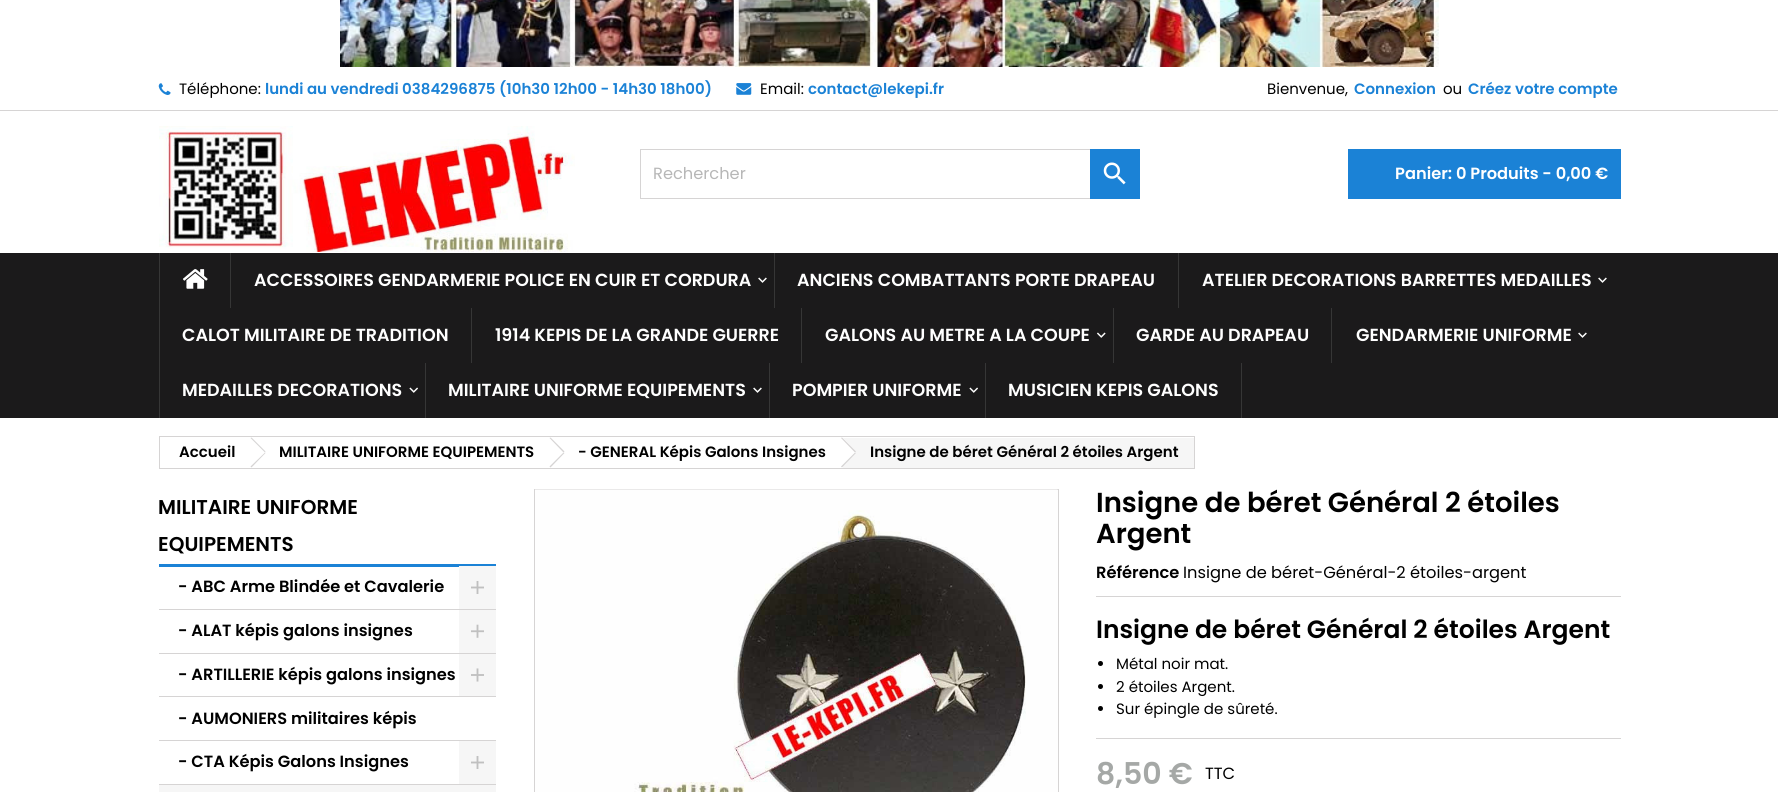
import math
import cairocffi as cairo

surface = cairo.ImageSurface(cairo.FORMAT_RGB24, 1778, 792)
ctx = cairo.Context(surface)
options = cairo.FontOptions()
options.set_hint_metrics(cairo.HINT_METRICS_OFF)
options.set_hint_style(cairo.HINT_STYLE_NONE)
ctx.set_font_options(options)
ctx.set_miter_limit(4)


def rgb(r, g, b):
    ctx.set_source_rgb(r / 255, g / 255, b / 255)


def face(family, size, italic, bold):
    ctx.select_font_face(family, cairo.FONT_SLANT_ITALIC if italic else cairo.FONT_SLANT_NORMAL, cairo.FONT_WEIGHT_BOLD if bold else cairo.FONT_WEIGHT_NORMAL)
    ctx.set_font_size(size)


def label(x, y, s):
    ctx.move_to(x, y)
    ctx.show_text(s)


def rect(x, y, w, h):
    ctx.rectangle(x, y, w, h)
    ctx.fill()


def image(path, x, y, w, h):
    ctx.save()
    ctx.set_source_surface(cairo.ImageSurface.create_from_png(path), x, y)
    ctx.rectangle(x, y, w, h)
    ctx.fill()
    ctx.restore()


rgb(255, 255, 255)
ctx.paint()
image('image0.png', 340, 0, 1099, 67)
rgb(214, 212, 212)
rect(0, 110, 1778, 1)
image('image1.png', 158, 83, 13, 12)
face('Poppins', 15, 0, 0)
rgb(0, 0, 0)
label(179, 94, 'Téléphone:')
face('Poppins SemiBold', 15, 0, 0)
rgb(27, 130, 214)
label(265, 94, 'lundi au vendredi 0384296875 (10h30 12h00 - 14h30 18h00)')
image('image2.png', 736, 83, 16, 12)
face('Poppins', 15, 0, 0)
rgb(0, 0, 0)
label(760, 94, 'Email:')
face('Poppins SemiBold', 15, 0, 0)
rgb(27, 130, 214)
label(808, 94, 'contact@lekepi.fr')
face('Poppins', 15, 0, 0)
rgb(0, 0, 0)
label(1267, 94, 'Bienvenue,')
face('Poppins SemiBold', 15, 0, 0)
rgb(27, 130, 214)
label(1354, 94, 'Connexion')
face('Poppins', 15, 0, 0)
rgb(0, 0, 0)
label(1443, 94, 'ou')
face('Poppins SemiBold', 15, 0, 0)
rgb(27, 130, 214)
label(1468, 94, 'Créez votre compte')
image('image3.png', 159, 126, 416, 126)
ctx.rectangle(640.5, 149.5, 499, 49)
rgb(214, 212, 212)
ctx.set_line_width(1)
ctx.stroke()
face('Poppins', 16.25, 0, 0)
rgb(183, 183, 183)
label(653, 179, 'Rechercher')
rgb(27, 130, 214)
rect(1090, 149, 50, 50)
image('image4.png', 1103, 162, 23, 23)
rect(1348, 149, 273, 50)
face('Poppins SemiBold', 16.25, 0, 0)
rgb(255, 255, 255)
label(1395, 179, 'Panier: 0 Produits - 0,00 €')
rgb(27, 26, 27)
rect(0, 253, 1778, 165)
rgb(54, 54, 54)
rect(159, 253, 1, 165)
image('image5.png', 183, 269, 25, 20)
rect(230, 253, 1, 55)
face('Poppins SemiBold', 17.5, 0, 0)
rgb(255, 255, 255)
label(254, 286, 'ACCESSOIRES GENDARMERIE POLICE EN CUIR ET CORDURA')
image('image6.png', 758, 277, 9, 6)
rgb(54, 54, 54)
rect(774, 253, 1, 55)
rgb(255, 255, 255)
label(797, 286, 'ANCIENS COMBATTANTS PORTE DRAPEAU')
rgb(54, 54, 54)
rect(1178, 253, 1, 55)
rgb(255, 255, 255)
label(1202, 286, 'ATELIER DECORATIONS BARRETTES MEDAILLES')
image('image6.png', 1598, 277, 9, 6)
label(182, 341, 'CALOT MILITAIRE DE TRADITION')
rgb(54, 54, 54)
rect(471, 308, 1, 55)
rgb(255, 255, 255)
label(495, 341, '1914 KEPIS DE LA GRANDE GUERRE')
rgb(54, 54, 54)
rect(801, 308, 1, 55)
rgb(255, 255, 255)
label(825, 341, 'GALONS AU METRE A LA COUPE')
image('image7.png', 1097, 332, 9, 6)
rgb(54, 54, 54)
rect(1113, 308, 1, 55)
rgb(255, 255, 255)
label(1136, 341, 'GARDE AU DRAPEAU')
rgb(54, 54, 54)
rect(1331, 308, 1, 55)
rgb(255, 255, 255)
label(1356, 341, 'GENDARMERIE UNIFORME')
image('image6.png', 1578, 332, 9, 6)
label(182, 396, 'MEDAILLES DECORATIONS')
image('image8.png', 409, 387, 9, 6)
rgb(54, 54, 54)
rect(425, 363, 1, 55)
rgb(255, 255, 255)
label(448, 396, 'MILITAIRE UNIFORME EQUIPEMENTS')
image('image6.png', 753, 387, 9, 6)
rgb(54, 54, 54)
rect(769, 363, 1, 55)
rgb(255, 255, 255)
label(792, 396, 'POMPIER UNIFORME')
image('image8.png', 969, 387, 9, 6)
rgb(54, 54, 54)
rect(1241, 363, 1, 55)
rect(985, 363, 1, 55)
rgb(255, 255, 255)
label(1008, 396, 'MUSICIEN KEPIS GALONS')
ctx.rectangle(159.5, 436.5, 1035, 32)
rgb(214, 212, 212)
ctx.stroke()
face('Poppins SemiBold', 15, 0, 0)
rgb(0, 0, 0)
label(179, 457, 'Accueil')
rgb(214, 212, 212)
ctx.new_path()
ctx.move_to(251.5, 437.5)
ctx.line_to(265.5, 451.5)
ctx.line_to(265, 452.5)
ctx.line_to(250.5, 438)
ctx.close_path()
ctx.fill()
ctx.new_path()
ctx.move_to(265, 452.5)
ctx.line_to(265.5, 453)
ctx.line_to(251.5, 467.5)
ctx.line_to(250.5, 466.5)
ctx.close_path()
ctx.fill()
rgb(0, 0, 0)
label(279, 457, 'MILITAIRE UNIFORME EQUIPEMENTS')
rgb(214, 212, 212)
ctx.new_path()
ctx.move_to(550.5, 437.5)
ctx.line_to(564.5, 451.5)
ctx.line_to(563.5, 452.5)
ctx.line_to(549.5, 438)
ctx.close_path()
ctx.fill()
ctx.new_path()
ctx.move_to(563.5, 452.5)
ctx.line_to(564.5, 453)
ctx.line_to(550.5, 467.5)
ctx.line_to(549.5, 466.5)
ctx.close_path()
ctx.fill()
rgb(0, 0, 0)
label(578, 457, '- GENERAL Képis Galons Insignes')
rgb(246, 246, 246)
rect(843, 438, 351, 30)
rgb(255, 255, 255)
ctx.new_path()
ctx.move_to(843, 438)
ctx.line_to(855, 450.5)
ctx.curve_to(856, 451.5, 856, 453, 855, 454)
ctx.line_to(843, 466.5)
ctx.curve_to(842, 467.5, 840.5, 467.5, 839.5, 466.5)
ctx.line_to(827, 454)
ctx.curve_to(826, 453, 826, 451.5, 827, 450.5)
ctx.line_to(839.5, 438)
ctx.curve_to(840.5, 437, 842, 437, 843, 438)
ctx.close_path()
ctx.fill()
rgb(214, 212, 212)
ctx.new_path()
ctx.move_to(842, 437.5)
ctx.line_to(856, 451.5)
ctx.line_to(855, 452.5)
ctx.line_to(841, 438)
ctx.close_path()
ctx.fill()
ctx.new_path()
ctx.move_to(855, 452.5)
ctx.line_to(856, 453)
ctx.line_to(842, 467.5)
ctx.line_to(841, 466.5)
ctx.close_path()
ctx.fill()
rgb(0, 0, 0)
label(870, 457, 'Insigne de béret Général 2 étoiles Argent')
rgb(27, 130, 214)
rect(159, 564, 337, 3)
face('Poppins SemiBold', 20, 0, 0)
rgb(0, 0, 0)
label(158, 514, 'MILITAIRE UNIFORME')
label(158, 551, 'EQUIPEMENTS')
rgb(214, 212, 212)
rect(159, 609, 337, 1)
face('Poppins SemiBold', 16.25, 0, 0)
rgb(0, 0, 0)
label(178, 592, '- ABC Arme Blindée et Cavalerie')
rgb(246, 246, 246)
rect(459, 566, 37, 43)
image('image9.png', 471, 581, 13, 13)
rgb(214, 212, 212)
rect(159, 653, 337, 1)
rgb(0, 0, 0)
label(178, 636, '- ALAT képis galons insignes')
rgb(246, 246, 246)
rect(459, 610, 37, 43)
image('image10.png', 471, 624, 13, 14)
rgb(214, 212, 212)
rect(159, 696, 337, 1)
rgb(0, 0, 0)
label(178, 680, '- ARTILLERIE képis galons insignes')
rgb(246, 246, 246)
rect(459, 654, 37, 42)
image('image11.png', 471, 668, 13, 14)
rgb(214, 212, 212)
rect(159, 740, 337, 1)
rgb(0, 0, 0)
label(178, 724, '- AUMONIERS militaires képis')
rgb(214, 212, 212)
rect(159, 784, 337, 1)
rgb(0, 0, 0)
label(178, 767, '- CTA Képis Galons Insignes')
rgb(246, 246, 246)
rect(459, 741, 37, 43)
image('image9.png', 471, 756, 13, 13)
rect(159, 785, 337, 7)
ctx.rectangle(534.5, 489.5, 524, 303)
rgb(214, 212, 212)
ctx.stroke()
image('image12.png', 535, 489, 523, 303)
face('Poppins SemiBold', 27.5, 0, 0)
rgb(0, 0, 0)
label(1096, 512, 'Insigne de béret Général 2 étoiles')
label(1096, 543, 'Argent')
face('Poppins SemiBold', 16.25, 0, 0)
label(1096, 578, 'Référence')
face('Poppins', 16.25, 0, 0)
label(1183, 578, 'Insigne de béret-Général-2 étoiles-argent')
rgb(214, 212, 212)
rect(1096, 596, 525, 1)
face('Poppins SemiBold', 25, 0, 0)
rgb(0, 0, 0)
label(1096, 638, 'Insigne de béret Général 2 étoiles Argent')
ctx.new_path()
ctx.arc(1100.5, 663.5, 2.5, 0, 2 * math.pi)
ctx.fill()
face('Poppins', 15, 0, 0)
label(1116, 669, 'Métal noir mat.')
ctx.new_path()
ctx.arc(1100.5, 686.5, 2.5, 0, 2 * math.pi)
ctx.fill()
label(1116, 692, '2 étoiles Argent.')
ctx.new_path()
ctx.arc(1100.5, 708.5, 2.5, 0, 2 * math.pi)
ctx.fill()
label(1116, 714, 'Sur épingle de sûreté.')
rgb(214, 212, 212)
rect(1096, 738, 525, 1)
face('Poppins SemiBold', 30, 0, 0)
rgb(165, 168, 166)
label(1096, 784, '8,50 €')
face('Poppins', 16.25, 0, 0)
rgb(0, 0, 0)
label(1205, 779, 'TTC')
surface.write_to_png('render.png')
